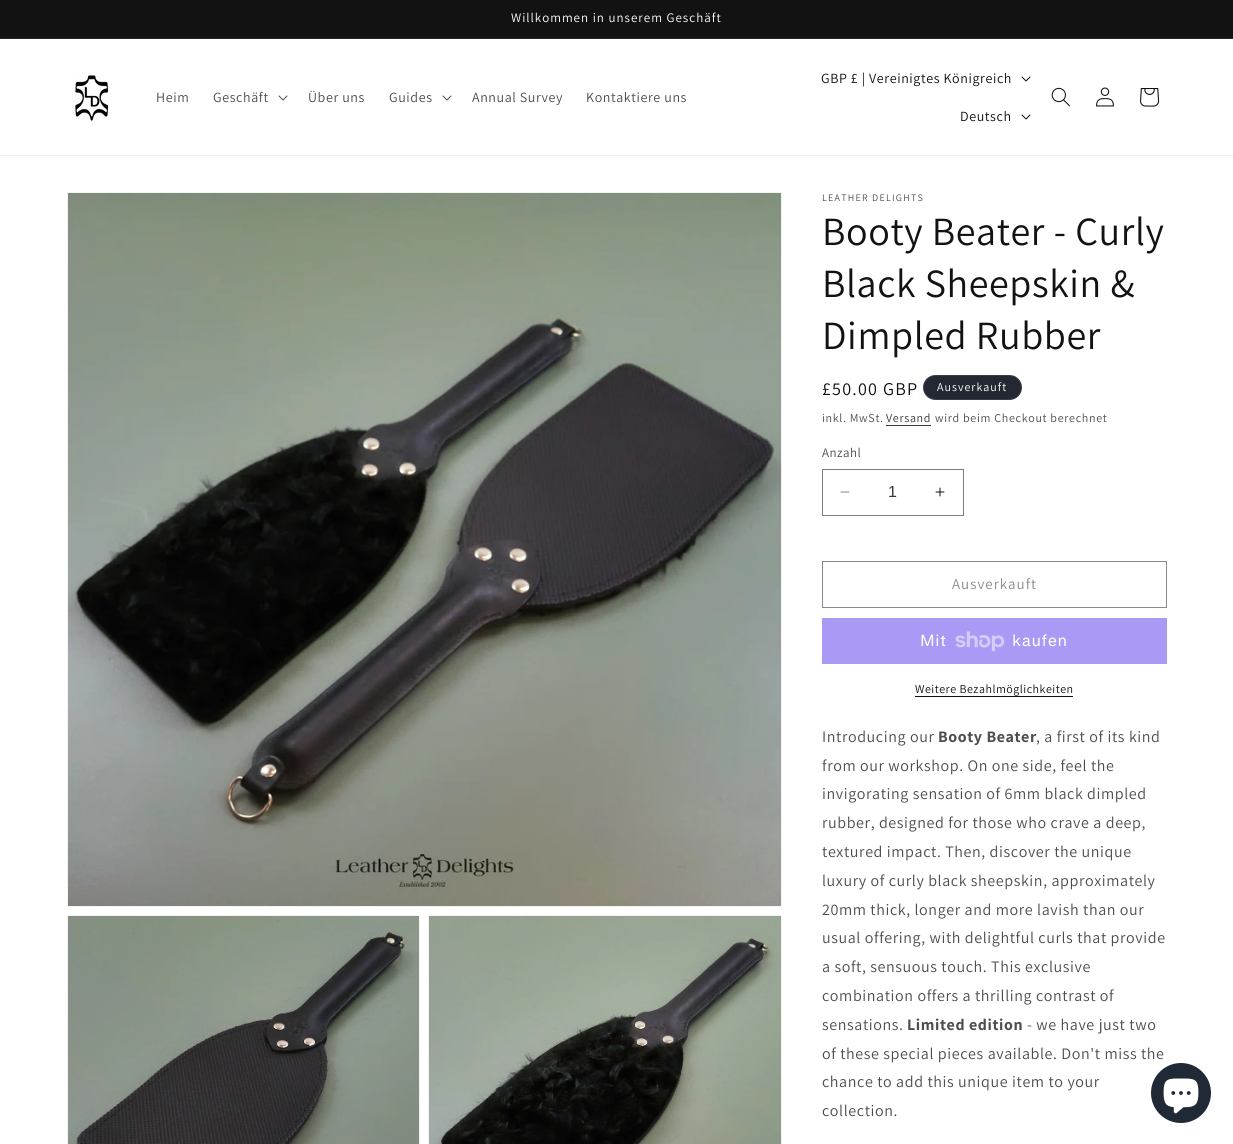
import math
import cairocffi as cairo

surface = cairo.ImageSurface(cairo.FORMAT_RGB24, 1233, 1144)
ctx = cairo.Context(surface)
options = cairo.FontOptions()
options.set_hint_metrics(cairo.HINT_METRICS_OFF)
options.set_hint_style(cairo.HINT_STYLE_NONE)
ctx.set_font_options(options)
ctx.set_miter_limit(4)


def rgb(r, g, b):
    ctx.set_source_rgb(r / 255, g / 255, b / 255)


def face(family, size, italic, bold):
    ctx.select_font_face(family, cairo.FONT_SLANT_ITALIC if italic else cairo.FONT_SLANT_NORMAL, cairo.FONT_WEIGHT_BOLD if bold else cairo.FONT_WEIGHT_NORMAL)
    ctx.set_font_size(size)


def label(x, y, s):
    ctx.move_to(x, y)
    ctx.show_text(s)


def tracked(x, y, s, letter, word):
    ctx.move_to(x, y)
    for ch in s:
        ctx.show_text(ch)
        ctx.rel_move_to(letter + word * (ch == ' '), 0)


def rect(x, y, w, h):
    ctx.rectangle(x, y, w, h)
    ctx.fill()


def rrect(x, y, w, h, r):
    ctx.new_sub_path()
    for i, (u, v) in enumerate([(x + w - r, y + h - r), (x + r, y + h - r), (x + r, y + r), (x + w - r, y + r)]):
        ctx.arc(u, v, r, i * math.pi / 2, (i + 1) * math.pi / 2)
    ctx.close_path()


def image(path, x, y, w, h):
    ctx.save()
    ctx.set_source_surface(cairo.ImageSurface.create_from_png(path), x, y)
    ctx.rectangle(x, y, w, h)
    ctx.fill()
    ctx.restore()


rgb(255, 255, 255)
ctx.paint()
rgb(18, 18, 18)
rect(0, 0, 1233, 38)
rgb(37, 37, 37)
rect(0, 38, 1233, 1)
face('Assistant', 13, 0, 0)
rgb(255, 255, 255)
tracked(511, 22, 'Willkommen in unserem Geschäft', 1, 0)
rgb(236, 236, 236)
rect(0, 155, 1233, 1)
image('image0.png', 75, 75, 34, 46)
face('Assistant', 14, 0, 0)
rgb(77, 77, 77)
tracked(156, 102, 'Heim', 0.6, 0)
tracked(213, 102, 'Geschäft', 0.6, 0)
image('image1.png', 278, 95, 10, 6)
tracked(308, 102, 'Über uns', 0.6, 0)
tracked(389, 102, 'Guides', 0.6, 0)
image('image1.png', 442, 95, 10, 6)
tracked(472, 102, 'Annual Survey', 0.6, 0)
tracked(586, 102, 'Kontaktiere uns', 0.6, 0)
rgb(18, 18, 18)
tracked(821, 83, 'GBP £ | Vereinigtes Königreich', 0.6, 0)
image('image2.png', 1021, 76, 10, 6)
tracked(960, 121, 'Deutsch', 0.6, 0)
image('image2.png', 1021, 114, 10, 6)
image('image3.png', 1051, 87, 19, 20)
image('image4.png', 1096, 87, 18, 20)
image('image5.png', 1140, 88, 20, 19)
ctx.rectangle(67.5, 192.5, 714, 714)
rgb(243, 243, 243)
ctx.set_line_width(1)
ctx.stroke()
image('image6.png', 68, 193, 713, 713)
ctx.rectangle(67.5, 915.5, 352, 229)
ctx.stroke()
image('image7.png', 68, 916, 351, 228)
ctx.rectangle(428.5, 915.5, 353, 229)
ctx.stroke()
image('image8.png', 429, 916, 352, 228)
face('Assistant', 10, 0, 0)
rgb(77, 77, 77)
tracked(822, 201, 'LEATHER DELIGHTS', 1.25, 0)
face('Assistant', 40, 0, 0)
rgb(18, 18, 18)
tracked(822, 245, 'Booty Beater - Curly', 0.6, 0)
tracked(822, 297, 'Black Sheepskin &', 0.6, 0)
tracked(822, 349, 'Dimpled Rubber', 0.6, 0)
face('Assistant', 18, 0, 0)
tracked(822, 395, '£50.00 GBP', 1.25, 0)
rgb(36, 40, 51)
rrect(923, 375, 99, 25, 12.5)
ctx.fill()
rrect(923.5, 375.5, 98, 24, 12)
ctx.set_source_rgba(1, 1, 1, 0.1)
ctx.stroke()
face('Assistant', 12, 0, 0)
rgb(255, 255, 255)
tracked(937, 391, 'Ausverkauft', 1, 0)
rgb(77, 77, 77)
tracked(822, 422, 'inkl. MwSt.', 0.7, 0)
rgb(54, 54, 54)
tracked(886, 422, 'Versand', 0.7, 0)
rect(886, 425, 45, 1)
rgb(77, 77, 77)
tracked(935, 422, 'wird beim Checkout berechnet', 0.7, 0)
face('Assistant', 13, 0, 0)
tracked(822, 457, 'Anzahl', 0.5, 0)
image('image9.png', 840, 491, 10, 2)
image('image10.png', 935, 487, 10, 10)
ctx.rectangle(822.5, 469.5, 141, 46)
rgb(125, 125, 125)
ctx.stroke()
face('Liberation Sans', 16, 0, 0)
rgb(54, 54, 54)
label(888, 497, '1')
ctx.rectangle(822.5, 561.5, 344, 46)
rgb(137, 137, 137)
ctx.stroke()
face('Assistant', 15, 0, 0)
tracked(952, 589, 'Ausverkauft', 1, 0)
rgb(170, 153, 245)
rect(822, 618, 345, 46)
face('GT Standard', 16, 0, 0)
rgb(255, 255, 255)
tracked(920, 646, 'Mit', 0.6, 0)
image('image11.png', 955, 631, 50, 20)
tracked(1012, 646, 'kaufen', 0.6, 0)
face('Assistant', 12, 0, 0)
rgb(18, 18, 18)
tracked(915, 693, 'Weitere Bezahlmöglichkeiten', 0.5, 0)
rect(915, 696, 158, 1)
face('Assistant', 16, 0, 0)
rgb(77, 77, 77)
tracked(822, 742, 'Introducing our', 0.6, 0)
face('Assistant', 16, 0, 1)
tracked(938, 742, 'Booty Beater', 0.6, 0)
face('Assistant', 16, 0, 0)
tracked(1036, 742, ', a first of its kind', 0.6, 0)
tracked(822, 771, 'from our workshop. On one side, feel the', 0.6, 0)
tracked(822, 799, 'invigorating sensation of 6mm black dimpled', 0.6, 0)
tracked(822, 828, 'rubber, designed for those who crave a deep,', 0.6, 0)
tracked(822, 857, 'textured impact. Then, discover the unique', 0.6, 0)
tracked(822, 886, 'luxury of curly black sheepskin, approximately', 0.6, 0)
tracked(822, 915, '20mm thick, longer and more lavish than our', 0.6, 0)
tracked(822, 943, 'usual offering, with delightful curls that provide', 0.6, 0)
tracked(822, 972, 'a soft, sensuous touch. This exclusive', 0.6, 0)
tracked(822, 1001, 'combination offers a thrilling contrast of', 0.6, 0)
tracked(822, 1030, 'sensations.', 0.6, 0)
face('Assistant', 16, 0, 1)
tracked(907, 1030, 'Limited edition', 0.6, 0)
face('Assistant', 16, 0, 0)
tracked(1027, 1030, '- we have just two', 0.6, 0)
tracked(822, 1059, 'of these special pieces available. Don\'t miss the', 0.6, 0)
tracked(822, 1087, 'chance to add this unique item to your', 0.6, 0)
tracked(822, 1116, 'collection.', 0.6, 0)
rgb(32, 42, 54)
ctx.new_path()
ctx.arc(1181, 1093, 30, 0, 2 * math.pi)
ctx.fill()
image('image12.png', 1163, 1078, 36, 36)
surface.write_to_png('render.png')
